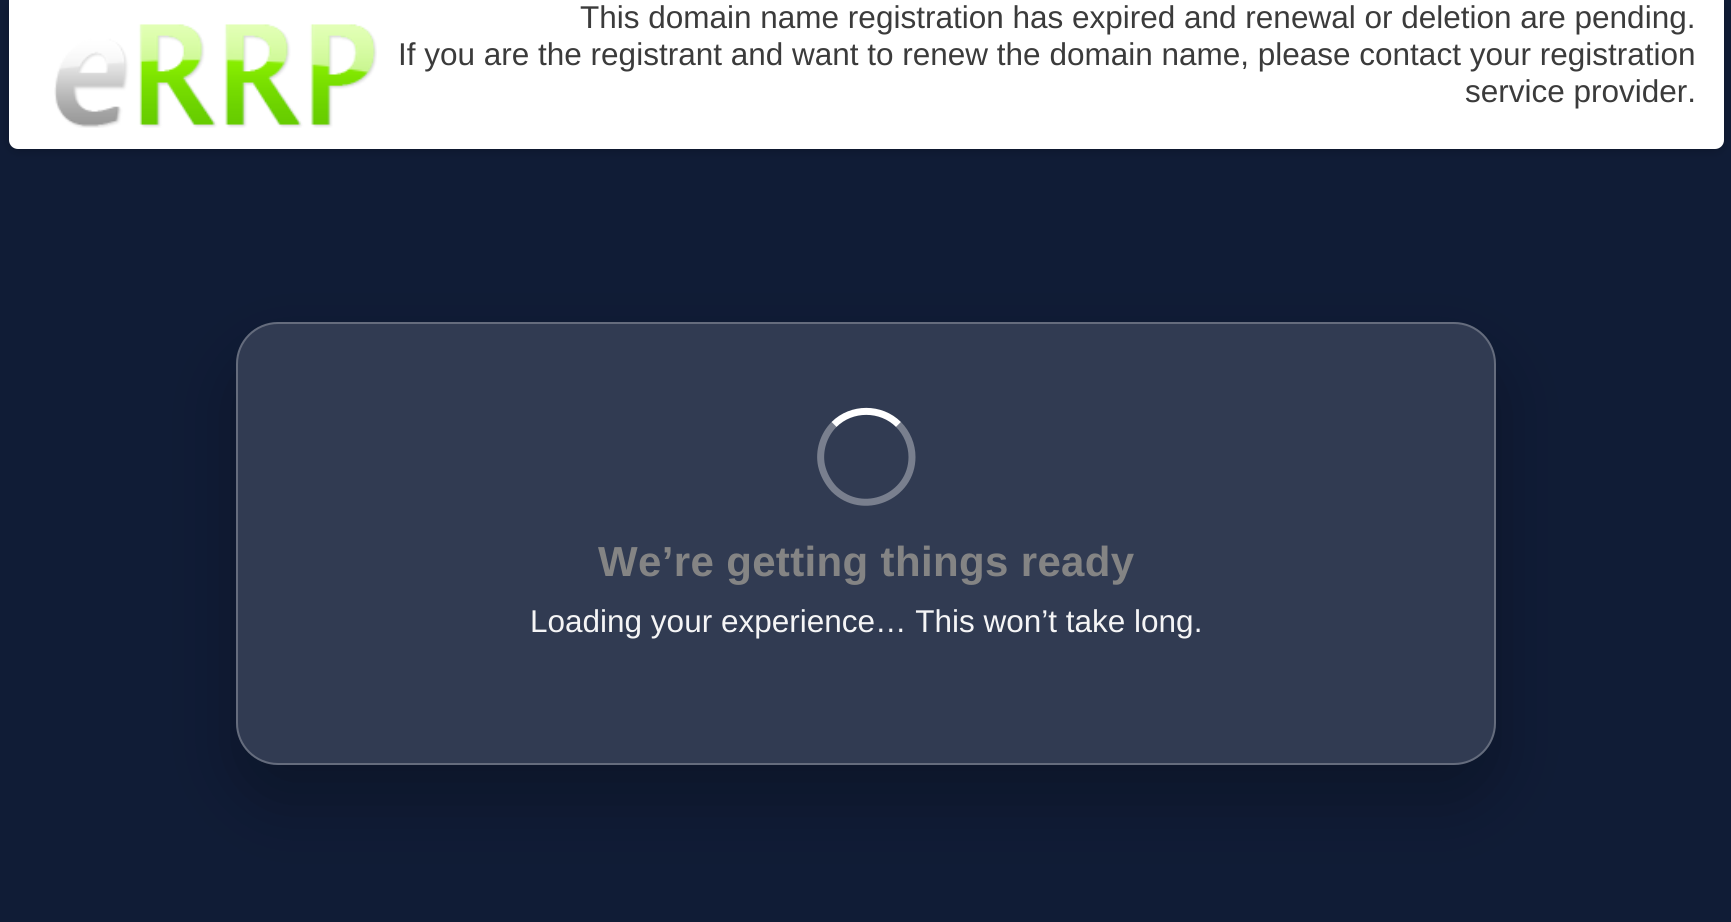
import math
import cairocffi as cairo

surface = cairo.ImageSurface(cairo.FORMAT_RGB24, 1731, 922)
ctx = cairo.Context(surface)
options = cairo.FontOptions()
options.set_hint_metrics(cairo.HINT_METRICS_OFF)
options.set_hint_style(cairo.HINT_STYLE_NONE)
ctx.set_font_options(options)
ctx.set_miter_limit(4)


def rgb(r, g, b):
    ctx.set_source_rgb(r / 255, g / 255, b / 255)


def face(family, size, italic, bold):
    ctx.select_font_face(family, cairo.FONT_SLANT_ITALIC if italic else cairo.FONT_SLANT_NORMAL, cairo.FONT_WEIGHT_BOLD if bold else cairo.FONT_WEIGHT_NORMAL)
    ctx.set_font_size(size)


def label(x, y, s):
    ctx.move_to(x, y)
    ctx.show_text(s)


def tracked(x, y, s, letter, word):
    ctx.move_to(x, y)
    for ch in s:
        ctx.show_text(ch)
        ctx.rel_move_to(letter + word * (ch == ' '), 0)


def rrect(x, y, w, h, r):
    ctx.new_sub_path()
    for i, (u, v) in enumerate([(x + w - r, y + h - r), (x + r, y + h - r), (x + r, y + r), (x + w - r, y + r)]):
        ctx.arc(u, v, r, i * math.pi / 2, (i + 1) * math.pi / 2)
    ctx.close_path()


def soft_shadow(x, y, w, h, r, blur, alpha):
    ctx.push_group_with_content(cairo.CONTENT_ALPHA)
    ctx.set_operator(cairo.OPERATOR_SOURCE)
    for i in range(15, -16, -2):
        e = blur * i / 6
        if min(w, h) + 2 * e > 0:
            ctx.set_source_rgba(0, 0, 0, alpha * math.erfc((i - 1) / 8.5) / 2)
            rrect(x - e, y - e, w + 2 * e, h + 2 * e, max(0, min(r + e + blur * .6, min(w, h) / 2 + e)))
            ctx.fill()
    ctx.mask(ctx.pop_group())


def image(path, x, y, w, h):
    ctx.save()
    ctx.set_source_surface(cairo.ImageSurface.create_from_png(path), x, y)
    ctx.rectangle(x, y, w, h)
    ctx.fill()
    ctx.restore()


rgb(16, 28, 54)
ctx.paint()
rgb(0, 0, 0)
soft_shadow(9, 2, 1715, 149, 9, 5, 0.2)
rgb(255, 255, 255)
ctx.new_path()
ctx.move_to(9, 0)
ctx.line_to(1724, 0)
ctx.line_to(1724, 140)
ctx.curve_to(1724, 145, 1720, 149, 1715, 149)
ctx.line_to(18, 149)
ctx.curve_to(13, 149, 9, 145, 9, 140)
ctx.close_path()
ctx.fill()
image('image0.png', 54, 24, 323, 104)
face('Liberation Sans', 31.5, 0, 0)
rgb(59, 59, 59)
label(580, 28, 'This domain name registration has expired and renewal or deletion are pending.')
label(398, 65, 'If you are the registrant and want to renew the domain name, please contact your registration')
label(1465, 102, 'service provider.')
ctx.save()
ctx.set_fill_rule(cairo.FILL_RULE_EVEN_ODD)
ctx.new_path()
ctx.move_to(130, 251)
ctx.line_to(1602, 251)
ctx.line_to(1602, 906)
ctx.line_to(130, 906)
ctx.close_path()
ctx.move_to(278, 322)
ctx.line_to(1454, 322)
ctx.curve_to(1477, 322, 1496, 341, 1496, 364)
ctx.line_to(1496, 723)
ctx.curve_to(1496, 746, 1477, 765, 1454, 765)
ctx.line_to(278, 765)
ctx.curve_to(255, 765, 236, 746, 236, 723)
ctx.line_to(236, 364)
ctx.curve_to(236, 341, 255, 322, 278, 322)
ctx.close_path()
ctx.clip()
rgb(0, 0, 0)
soft_shadow(236, 357, 1260, 443, 42, 35, 0.25)
ctx.restore()
ctx.set_source_rgba(1, 1, 1, 0.14)
rrect(236, 322, 1260, 443, 42)
ctx.fill()
rrect(237, 323, 1258, 441, 41)
ctx.set_source_rgba(1, 1, 1, 0.25)
ctx.stroke()
ctx.new_path()
ctx.move_to(834, 424.5)
ctx.curve_to(851.5, 407, 881, 407, 898.5, 424.5)
rgb(255, 255, 255)
ctx.set_line_width(7)
ctx.stroke()
ctx.new_path()
ctx.move_to(898.5, 424.5)
ctx.curve_to(907, 433, 912, 445, 912, 457)
ctx.curve_to(912, 497, 862.5, 517.5, 834, 489)
ctx.curve_to(828, 482.5, 823.5, 474.5, 821.5, 465.5)
ctx.curve_to(818.5, 451, 823.5, 435, 834, 424.5)
ctx.set_source_rgba(1, 1, 1, 0.35)
ctx.stroke()
face('Liberation Sans', 42, 0, 1)
rgb(132, 132, 132)
tracked(598, 576, 'We’re getting things ready', 0.35, 0)
face('Liberation Sans', 31.5, 0, 0)
rgb(245, 245, 246)
label(530, 632, 'Loading your experience… This won’t take long.')
surface.write_to_png('render.png')
